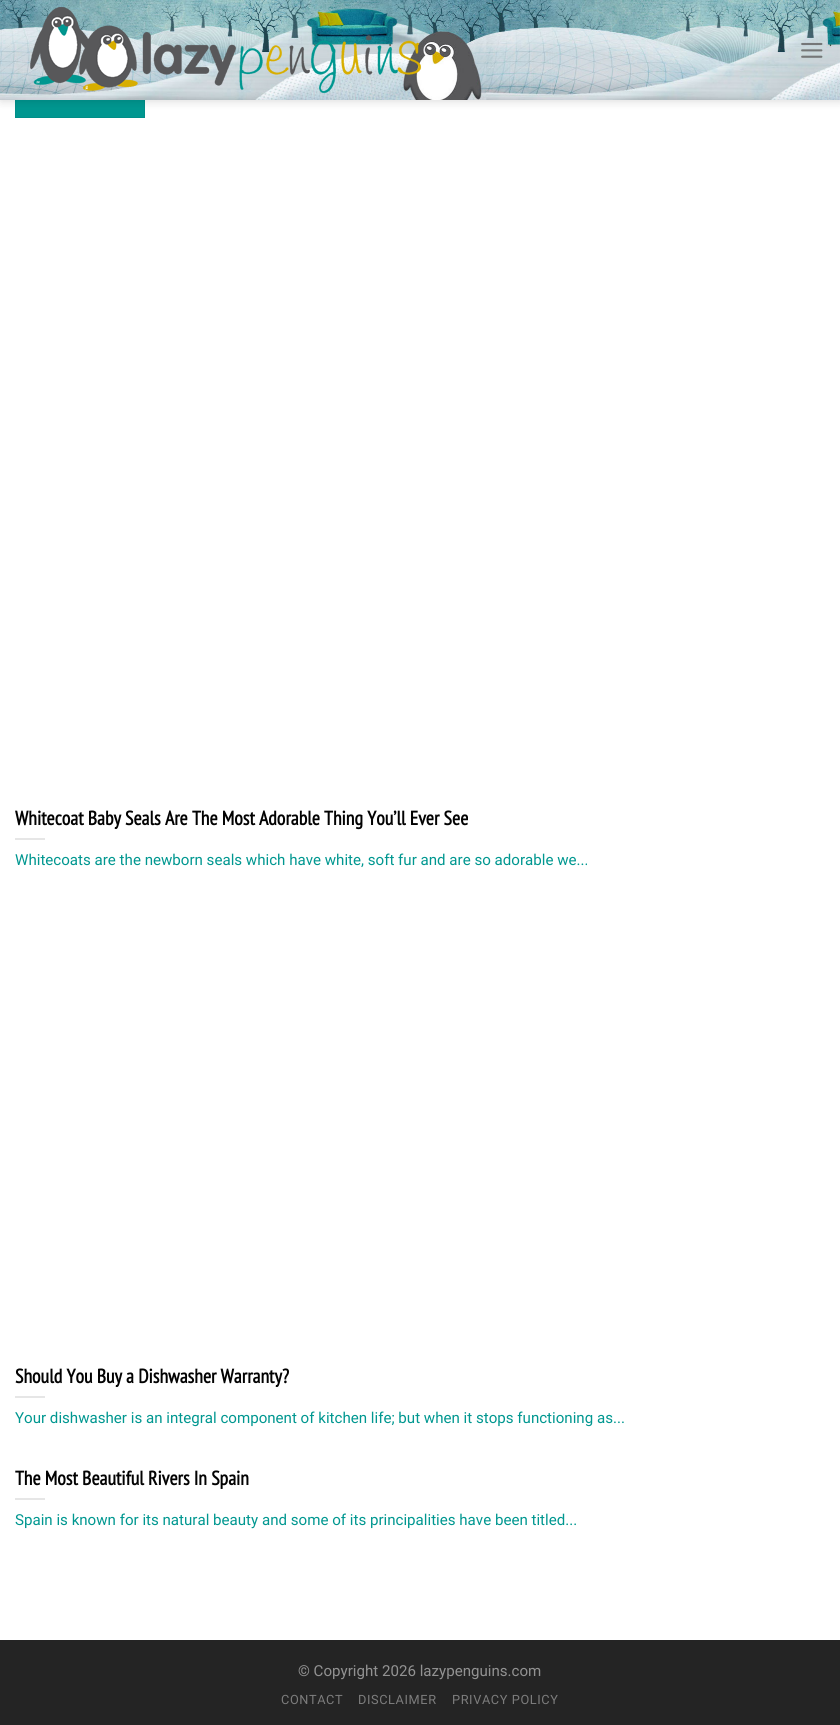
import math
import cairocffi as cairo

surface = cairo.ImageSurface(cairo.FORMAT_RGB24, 840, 1725)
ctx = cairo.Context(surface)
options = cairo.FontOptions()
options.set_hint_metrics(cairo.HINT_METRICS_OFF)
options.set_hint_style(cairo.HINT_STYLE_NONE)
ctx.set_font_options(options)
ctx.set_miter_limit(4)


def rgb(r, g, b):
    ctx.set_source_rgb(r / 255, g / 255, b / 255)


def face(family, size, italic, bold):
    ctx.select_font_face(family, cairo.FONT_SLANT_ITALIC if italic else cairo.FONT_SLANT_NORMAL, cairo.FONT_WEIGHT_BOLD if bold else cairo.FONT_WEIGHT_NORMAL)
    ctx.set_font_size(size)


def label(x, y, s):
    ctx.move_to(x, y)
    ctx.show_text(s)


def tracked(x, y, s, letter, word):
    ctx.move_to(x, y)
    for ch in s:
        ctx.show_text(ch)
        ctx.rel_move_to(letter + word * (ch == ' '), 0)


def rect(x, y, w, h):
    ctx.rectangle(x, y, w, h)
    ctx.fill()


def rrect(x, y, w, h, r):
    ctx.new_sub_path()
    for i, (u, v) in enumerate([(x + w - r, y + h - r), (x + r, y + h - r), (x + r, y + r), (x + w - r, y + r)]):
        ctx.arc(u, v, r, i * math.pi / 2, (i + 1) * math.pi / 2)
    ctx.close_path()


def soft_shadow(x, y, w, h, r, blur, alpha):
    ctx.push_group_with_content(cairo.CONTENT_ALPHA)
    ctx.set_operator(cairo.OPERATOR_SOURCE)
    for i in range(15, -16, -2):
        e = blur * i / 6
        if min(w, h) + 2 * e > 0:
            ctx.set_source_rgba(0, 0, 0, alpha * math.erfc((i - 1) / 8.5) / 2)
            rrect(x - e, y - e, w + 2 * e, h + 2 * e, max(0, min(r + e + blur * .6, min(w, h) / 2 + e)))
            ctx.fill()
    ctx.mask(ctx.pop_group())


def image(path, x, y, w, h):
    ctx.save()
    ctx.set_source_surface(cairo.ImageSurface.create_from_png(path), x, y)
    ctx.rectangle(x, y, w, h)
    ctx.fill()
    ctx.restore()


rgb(255, 255, 255)
ctx.paint()
rgb(0, 151, 144)
rect(16, 100, 128, 17)
ctx.rectangle(15.5, 77.5, 129, 40)
rgb(0, 143, 137)
ctx.set_line_width(1)
ctx.stroke()
rgb(0, 0, 0)
soft_shadow(1, 1, 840, 100, 0, 5, 0.15)
image('image0.png', 0, 0, 840, 100)
image('image1.png', 30, 7, 391, 86)
image('image2.png', 801, 42, 22, 16)
face('PT Sans Narrow', 19.7, 0, 1)
rgb(2, 2, 2)
label(15, 825, 'Whitecoat Baby Seals Are The Most Adorable Thing You’ll Ever See')
rgb(230, 230, 230)
rect(15, 838, 30, 2)
face('Roboto', 15.1, 0, 0)
rgb(0, 151, 144)
label(15, 865, 'Whitecoats are the newborn seals which have white, soft fur and are so adorable we...')
face('PT Sans Narrow', 19.7, 0, 1)
rgb(2, 2, 2)
label(15, 1383, 'Should You Buy a Dishwasher Warranty?')
rgb(230, 230, 230)
rect(15, 1396, 30, 2)
face('Roboto', 15.1, 0, 0)
rgb(0, 151, 144)
label(15, 1423, 'Your dishwasher is an integral component of kitchen life; but when it stops functioning as...')
face('PT Sans Narrow', 19.7, 0, 1)
rgb(2, 2, 2)
label(15, 1485, 'The Most Beautiful Rivers In Spain')
rgb(230, 230, 230)
rect(15, 1498, 30, 2)
face('Roboto', 15.1, 0, 0)
rgb(0, 151, 144)
label(15, 1525, 'Spain is known for its natural beauty and some of its principalities have been titled...')
rgb(36, 36, 36)
rect(0, 1640, 840, 85)
rgb(146, 146, 146)
label(298, 1676, '© Copyright 2026 lazypenguins.com')
face('Roboto', 12.75, 0, 0)
rgb(124, 124, 124)
tracked(281, 1704, 'CONTACT', 0.6, 0)
tracked(358, 1704, 'DISCLAIMER', 0.6, 0)
tracked(452, 1704, 'PRIVACY POLICY', 0.6, 0)
surface.write_to_png('render.png')
